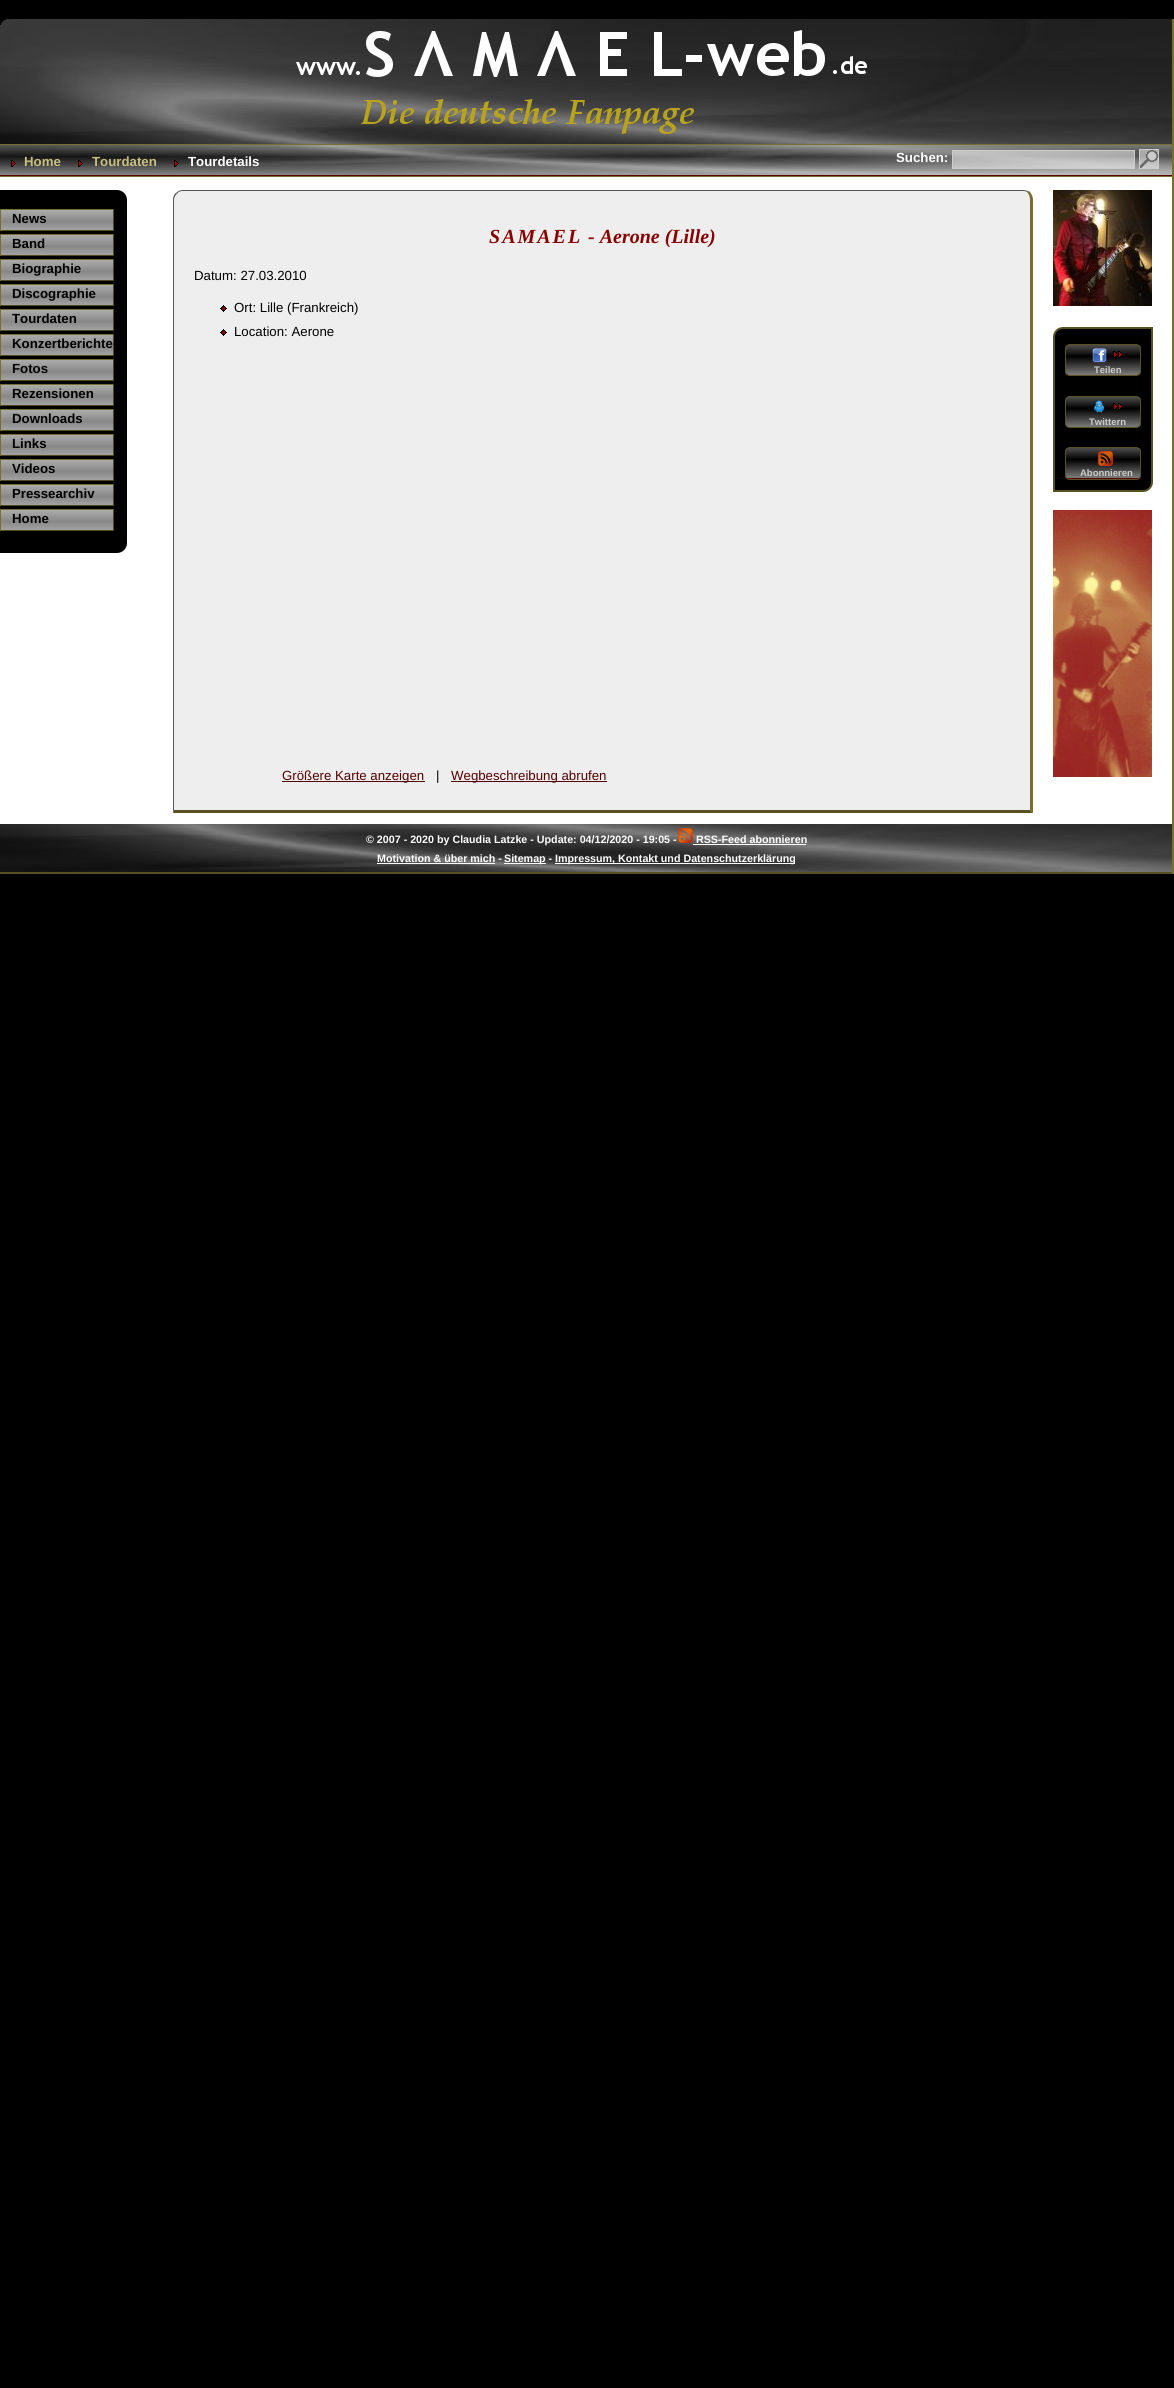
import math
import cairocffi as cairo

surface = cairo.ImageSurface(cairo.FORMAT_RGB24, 1174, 2388)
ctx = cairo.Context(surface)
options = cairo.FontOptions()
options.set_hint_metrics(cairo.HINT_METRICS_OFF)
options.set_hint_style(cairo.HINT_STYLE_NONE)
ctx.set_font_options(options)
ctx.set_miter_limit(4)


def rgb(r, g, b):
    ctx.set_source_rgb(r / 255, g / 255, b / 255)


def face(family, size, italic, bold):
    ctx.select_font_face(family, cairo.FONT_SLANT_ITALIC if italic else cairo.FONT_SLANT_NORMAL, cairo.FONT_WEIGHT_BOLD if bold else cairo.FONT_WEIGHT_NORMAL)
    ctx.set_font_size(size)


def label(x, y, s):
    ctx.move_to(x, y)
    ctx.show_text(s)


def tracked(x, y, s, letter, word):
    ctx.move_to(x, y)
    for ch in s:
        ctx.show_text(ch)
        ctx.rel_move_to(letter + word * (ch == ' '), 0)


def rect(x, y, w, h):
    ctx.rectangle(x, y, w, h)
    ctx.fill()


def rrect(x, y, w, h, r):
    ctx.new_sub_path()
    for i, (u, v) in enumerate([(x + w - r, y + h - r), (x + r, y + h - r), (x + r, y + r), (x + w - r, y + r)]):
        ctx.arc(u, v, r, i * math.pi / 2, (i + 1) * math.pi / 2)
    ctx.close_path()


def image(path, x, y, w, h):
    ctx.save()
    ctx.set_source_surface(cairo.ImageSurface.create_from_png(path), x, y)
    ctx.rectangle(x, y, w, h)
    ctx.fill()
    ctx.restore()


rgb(0, 0, 0)
ctx.paint()
rgb(255, 255, 255)
ctx.new_path()
ctx.move_to(10, 19)
ctx.line_to(1174, 19)
ctx.line_to(1174, 874)
ctx.line_to(0, 874)
ctx.line_to(0, 29)
ctx.curve_to(0, 23.5, 4.5, 19, 10, 19)
ctx.close_path()
ctx.fill()
rgb(120, 110, 46)
ctx.new_path()
ctx.move_to(1174, 19)
ctx.line_to(1172, 19)
ctx.line_to(1172, 872)
ctx.line_to(1174, 874)
ctx.close_path()
ctx.fill()
rgb(89, 81, 34)
ctx.new_path()
ctx.move_to(1174, 874)
ctx.line_to(1172, 872)
ctx.line_to(0, 872)
ctx.line_to(0, 874)
ctx.close_path()
ctx.fill()
rgb(0, 0, 0)
ctx.new_path()
ctx.move_to(10, 19)
ctx.line_to(1172, 19)
ctx.line_to(1172, 177)
ctx.line_to(0, 177)
ctx.line_to(0, 29)
ctx.curve_to(0, 23.5, 4.5, 19, 10, 19)
ctx.close_path()
ctx.fill()
image('image0.png', 0, 19, 1172, 156)
image('image1.png', 296, 30, 571, 104)
image('image2.png', 0, 145, 1172, 31)
rgb(120, 110, 46)
rect(0, 144, 1172, 1)
rect(0, 176, 1172, 1)
image('image3.png', 11, 160, 5, 7)
face('Liberation Sans', 13.25, 0, 1)
rgb(200, 190, 126)
label(24, 166, 'Home')
image('image4.png', 78, 160, 5, 7)
label(92, 166, 'Tourdaten')
image('image5.png', 174, 160, 5, 7)
rgb(255, 255, 255)
label(188, 166, 'Tourdetails')
label(896, 162, 'Suchen:')
ctx.set_source_rgba(1, 1, 1, 0.5)
ctx.rectangle(952.5, 150.5, 182, 18)
ctx.fill_preserve()
rgb(204, 204, 204)
ctx.set_line_width(1)
ctx.stroke()
image('image6.png', 1140, 150, 18, 18)
ctx.rectangle(1139.5, 149.5, 19, 19)
ctx.stroke()
image('image7.png', 1140, 151, 17, 17)
rgb(0, 0, 0)
ctx.new_path()
ctx.move_to(0, 190)
ctx.line_to(117, 190)
ctx.curve_to(122.5, 190, 127, 194.5, 127, 200)
ctx.line_to(127, 543)
ctx.curve_to(127, 548.5, 122.5, 553, 117, 553)
ctx.line_to(0, 553)
ctx.close_path()
ctx.fill()
rgb(136, 136, 136)
rect(1, 210, 112, 20)
image('image8.png', 1, 210, 112, 20)
rgb(120, 110, 46)
rect(0, 209, 114, 1)
rgb(80, 73, 31)
rect(113, 209, 1, 22)
rect(0, 230, 114, 1)
rgb(120, 110, 46)
rect(0, 209, 1, 22)
rgb(0, 0, 0)
label(12, 223, 'News')
rgb(136, 136, 136)
rect(1, 235, 112, 20)
image('image8.png', 1, 235, 112, 20)
rgb(120, 110, 46)
rect(0, 234, 114, 1)
rgb(80, 73, 31)
rect(113, 234, 1, 22)
rect(0, 255, 114, 1)
rgb(120, 110, 46)
rect(0, 234, 1, 22)
rgb(0, 0, 0)
label(12, 248, 'Band')
rgb(136, 136, 136)
rect(1, 260, 112, 20)
image('image8.png', 1, 260, 112, 20)
rgb(120, 110, 46)
rect(0, 259, 114, 1)
rgb(80, 73, 31)
rect(113, 259, 1, 22)
rect(0, 280, 114, 1)
rgb(120, 110, 46)
rect(0, 259, 1, 22)
rgb(0, 0, 0)
label(12, 273, 'Biographie')
rgb(136, 136, 136)
rect(1, 285, 112, 20)
image('image8.png', 1, 285, 112, 20)
rgb(120, 110, 46)
rect(0, 284, 114, 1)
rgb(80, 73, 31)
rect(113, 284, 1, 22)
rect(0, 305, 114, 1)
rgb(120, 110, 46)
rect(0, 284, 1, 22)
rgb(0, 0, 0)
label(12, 298, 'Discographie')
rgb(136, 136, 136)
rect(1, 310, 112, 20)
image('image8.png', 1, 310, 112, 20)
rgb(120, 110, 46)
rect(0, 309, 114, 1)
rgb(80, 73, 31)
rect(113, 309, 1, 22)
rect(0, 330, 114, 1)
rgb(120, 110, 46)
rect(0, 309, 1, 22)
rgb(0, 0, 0)
label(12, 323, 'Tourdaten')
rgb(136, 136, 136)
rect(1, 335, 112, 20)
image('image8.png', 1, 335, 112, 20)
rgb(120, 110, 46)
rect(0, 334, 114, 1)
rgb(80, 73, 31)
rect(113, 334, 1, 22)
rect(0, 355, 114, 1)
rgb(120, 110, 46)
rect(0, 334, 1, 22)
rgb(0, 0, 0)
label(12, 348, 'Konzertberichte')
rgb(136, 136, 136)
rect(1, 360, 112, 20)
image('image8.png', 1, 360, 112, 20)
rgb(120, 110, 46)
rect(0, 359, 114, 1)
rgb(80, 73, 31)
rect(113, 359, 1, 22)
rect(0, 380, 114, 1)
rgb(120, 110, 46)
rect(0, 359, 1, 22)
rgb(0, 0, 0)
label(12, 373, 'Fotos')
rgb(136, 136, 136)
rect(1, 385, 112, 20)
image('image8.png', 1, 385, 112, 20)
rgb(120, 110, 46)
rect(0, 384, 114, 1)
rgb(80, 73, 31)
rect(113, 384, 1, 22)
rect(0, 405, 114, 1)
rgb(120, 110, 46)
rect(0, 384, 1, 22)
rgb(0, 0, 0)
label(12, 398, 'Rezensionen')
rgb(136, 136, 136)
rect(1, 410, 112, 20)
image('image8.png', 1, 410, 112, 20)
rgb(120, 110, 46)
rect(0, 409, 114, 1)
rgb(80, 73, 31)
rect(113, 409, 1, 22)
rect(0, 430, 114, 1)
rgb(120, 110, 46)
rect(0, 409, 1, 22)
rgb(0, 0, 0)
label(12, 423, 'Downloads')
rgb(136, 136, 136)
rect(1, 435, 112, 20)
image('image8.png', 1, 435, 112, 20)
rgb(120, 110, 46)
rect(0, 434, 114, 1)
rgb(80, 73, 31)
rect(113, 434, 1, 22)
rect(0, 455, 114, 1)
rgb(120, 110, 46)
rect(0, 434, 1, 22)
rgb(0, 0, 0)
label(12, 448, 'Links')
rgb(136, 136, 136)
rect(1, 460, 112, 20)
image('image8.png', 1, 460, 112, 20)
rgb(120, 110, 46)
rect(0, 459, 114, 1)
rgb(80, 73, 31)
rect(113, 459, 1, 22)
rect(0, 480, 114, 1)
rgb(120, 110, 46)
rect(0, 459, 1, 22)
rgb(0, 0, 0)
label(12, 473, 'Videos')
rgb(136, 136, 136)
rect(1, 485, 112, 20)
image('image8.png', 1, 485, 112, 20)
rgb(120, 110, 46)
rect(0, 484, 114, 1)
rgb(80, 73, 31)
rect(113, 484, 1, 22)
rect(0, 505, 114, 1)
rgb(120, 110, 46)
rect(0, 484, 1, 22)
rgb(0, 0, 0)
label(12, 498, 'Pressearchiv')
rgb(136, 136, 136)
rect(1, 510, 112, 20)
image('image8.png', 1, 510, 112, 20)
rgb(120, 110, 46)
rect(0, 509, 114, 1)
rgb(80, 73, 31)
rect(113, 509, 1, 22)
rect(0, 530, 114, 1)
rgb(120, 110, 46)
rect(0, 509, 1, 22)
rgb(0, 0, 0)
label(12, 523, 'Home')
rgb(238, 238, 238)
ctx.new_path()
ctx.move_to(183, 191)
ctx.line_to(1023, 191)
ctx.curve_to(1027, 191, 1030, 195, 1030, 200)
ctx.line_to(1030, 810)
ctx.line_to(174, 810)
ctx.line_to(174, 200)
ctx.curve_to(174, 195, 178, 191, 183, 191)
ctx.close_path()
ctx.fill()
rgb(85, 85, 85)
ctx.new_path()
ctx.move_to(183, 190)
ctx.curve_to(180, 190, 178, 191, 176, 193)
ctx.line_to(177, 194)
ctx.curve_to(178, 192, 180, 191, 183, 191)
ctx.line_to(1023, 191)
ctx.curve_to(1024, 191, 1025, 191, 1027, 192)
ctx.line_to(1029, 191)
ctx.curve_to(1027, 191, 1025, 190, 1023, 190)
ctx.close_path()
ctx.fill()
rgb(120, 110, 46)
ctx.new_path()
ctx.move_to(1033, 813)
ctx.line_to(1033, 200)
ctx.curve_to(1033, 196, 1031, 193, 1029, 191)
ctx.line_to(1027, 192)
ctx.curve_to(1029, 194, 1030, 197, 1030, 200)
ctx.line_to(1030, 810)
ctx.close_path()
ctx.fill()
rgb(89, 81, 34)
ctx.new_path()
ctx.move_to(1033, 813)
ctx.line_to(1030, 810)
ctx.line_to(174, 810)
ctx.line_to(173, 813)
ctx.close_path()
ctx.fill()
rgb(85, 85, 85)
ctx.new_path()
ctx.move_to(173, 813)
ctx.line_to(174, 810)
ctx.line_to(174, 200)
ctx.curve_to(174, 198, 175, 195, 177, 194)
ctx.line_to(176, 193)
ctx.curve_to(174, 194, 173, 197, 173, 200)
ctx.close_path()
ctx.fill()
face('Liberation Serif', 20, 1, 1)
rgb(136, 0, 0)
tracked(489, 243, 'SAMAEL', 2, 0)
label(588, 243, '- Aerone (Lille)')
face('Liberation Sans', 13.25, 0, 0)
rgb(0, 0, 0)
label(194, 280, 'Datum: 27.03.2010')
image('image9.png', 220, 305, 7, 7)
label(234, 312, 'Ort: Lille (Frankreich)')
image('image9.png', 220, 329, 7, 7)
label(234, 336, 'Location: Aerone')
rgb(85, 0, 0)
rect(282, 781, 143, 1)
label(282, 780, 'Größere Karte anzeigen')
rgb(0, 0, 0)
label(436, 780, '|')
rgb(85, 0, 0)
rect(451, 781, 156, 1)
label(451, 780, 'Wegbeschreibung abrufen')
image('image10.png', 1053, 190, 99, 116)
rgb(0, 0, 0)
ctx.new_path()
ctx.move_to(1063, 328)
ctx.line_to(1152, 328)
ctx.line_to(1152, 482)
ctx.curve_to(1152, 487, 1148, 491, 1143, 491)
ctx.line_to(1054, 491)
ctx.line_to(1054, 337)
ctx.curve_to(1054, 332, 1058, 328, 1063, 328)
ctx.close_path()
ctx.fill_preserve()
rgb(89, 81, 34)
ctx.set_line_width(2)
ctx.stroke()
image('image11.png', 1065, 345, 76, 31)
rrect(1065.5, 344.5, 75, 31, 4.5)
ctx.set_line_width(1)
ctx.stroke()
image('image12.png', 1092, 348, 15, 15)
image('image13.png', 1113, 351, 10, 7)
face('Liberation Sans', 9.5, 0, 1)
rgb(204, 204, 204)
label(1094, 373, 'Teilen')
image('image11.png', 1065, 397, 76, 31)
rrect(1065.5, 396.5, 75, 31, 4.5)
rgb(89, 81, 34)
ctx.stroke()
image('image14.png', 1093, 400, 12, 13)
image('image13.png', 1113, 403, 10, 7)
rgb(204, 204, 204)
label(1089, 425, 'Twittern')
image('image15.png', 1065, 448, 76, 32)
rrect(1065.5, 447.5, 75, 32, 4.5)
rgb(89, 81, 34)
ctx.stroke()
image('image16.png', 1098, 451, 15, 15)
rgb(204, 204, 204)
label(1080, 476, 'Abonnieren')
image('image17.png', 1053, 510, 99, 267)
image('image18.png', 0, 824, 1172, 48)
face('Liberation Sans', 10.7, 0, 1)
rgb(255, 255, 255)
label(366, 843, '© 2007 - 2020 by Claudia Latzke - Update: 04/12/2020 - 19:05 -')
image('image19.png', 678, 828, 15, 15)
label(696, 843, 'RSS-Feed abonnieren')
rect(693, 844, 113, 1)
label(377, 862, 'Motivation & über mich -')
rect(377, 863, 118, 1)
rect(504, 863, 42, 1)
label(504, 862, 'Sitemap -')
rect(555, 863, 240, 1)
label(555, 862, 'Impressum, Kontakt und Datenschutzerklärung')
surface.write_to_png('render.png')
